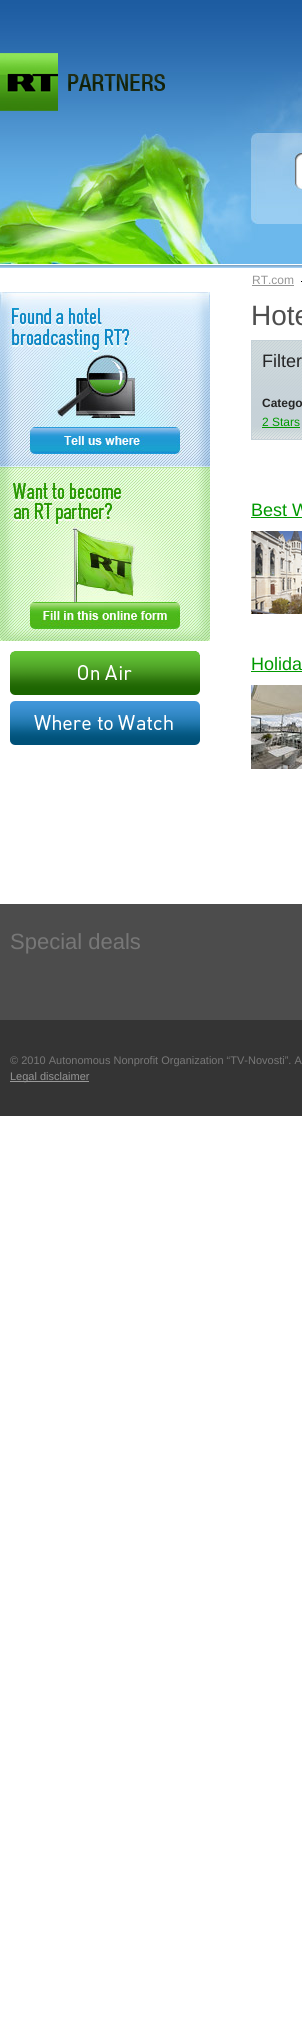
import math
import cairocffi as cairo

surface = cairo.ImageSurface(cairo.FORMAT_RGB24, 302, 2030)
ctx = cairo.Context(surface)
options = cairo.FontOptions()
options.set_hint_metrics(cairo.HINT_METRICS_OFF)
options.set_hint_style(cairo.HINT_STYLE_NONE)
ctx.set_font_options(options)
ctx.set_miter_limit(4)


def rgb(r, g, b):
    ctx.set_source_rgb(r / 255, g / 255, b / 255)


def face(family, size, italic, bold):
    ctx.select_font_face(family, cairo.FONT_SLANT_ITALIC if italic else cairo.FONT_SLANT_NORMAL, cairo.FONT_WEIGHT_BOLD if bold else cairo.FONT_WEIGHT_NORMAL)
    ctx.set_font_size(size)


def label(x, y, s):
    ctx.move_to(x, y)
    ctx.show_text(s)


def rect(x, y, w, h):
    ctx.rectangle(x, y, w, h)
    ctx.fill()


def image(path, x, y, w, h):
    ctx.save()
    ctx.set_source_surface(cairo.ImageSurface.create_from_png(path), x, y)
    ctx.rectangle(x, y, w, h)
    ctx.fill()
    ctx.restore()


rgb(255, 255, 255)
ctx.paint()
image('image0.png', 0, 0, 302, 268)
image('image1.png', 0, 72, 302, 192)
image('image2.png', 0, 53, 165, 58)
face('Liberation Sans', 12, 0, 0)
rgb(149, 149, 149)
label(252, 284, 'RT.com')
rect(252, 285, 42, 1)
rgb(0, 0, 0)
rect(301, 281, 1, 1)
image('image3.png', 0, 292, 210, 175)
image('image4.png', 0, 467, 210, 174)
image('image5.png', 10, 651, 190, 44)
image('image6.png', 10, 701, 190, 44)
face('Liberation Sans', 28, 0, 0)
rgb(78, 78, 78)
label(251, 325, 'Hote')
image('image7.png', 252, 341, 50, 98)
ctx.rectangle(251.5, 340.5, 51, 99)
rgb(197, 209, 215)
ctx.set_line_width(1)
ctx.stroke()
image('image8.png', 252, 341, 50, 98)
face('Liberation Sans', 18, 0, 0)
rgb(37, 37, 37)
label(262, 367, 'Filter')
face('Liberation Sans', 12, 0, 1)
label(262, 407, 'Catego')
face('Liberation Sans', 12, 0, 0)
rgb(0, 153, 0)
label(262, 426, '2 Stars')
rect(262, 427, 38, 1)
face('Liberation Sans', 18, 0, 0)
label(251, 516, 'Best W')
rect(251, 517, 51, 1)
image('image9.png', 251, 531, 51, 83)
label(251, 670, 'Holida')
rect(251, 671, 51, 1)
image('image10.png', 251, 685, 51, 84)
rgb(76, 76, 76)
rect(0, 904, 302, 116)
face('Liberation Sans', 22, 0, 0)
rgb(119, 119, 119)
label(10, 949, 'Special deals')
rgb(52, 52, 52)
rect(0, 1020, 302, 96)
face('Liberation Sans', 11, 0, 0)
rgb(119, 119, 119)
label(10, 1064, '© 2010 Autonomous Nonprofit Organization “TV-Novosti”. A')
rgb(153, 153, 153)
rect(10, 1081, 79, 1)
rgb(149, 149, 149)
label(10, 1080, 'Legal disclaimer')
surface.write_to_png('render.png')
